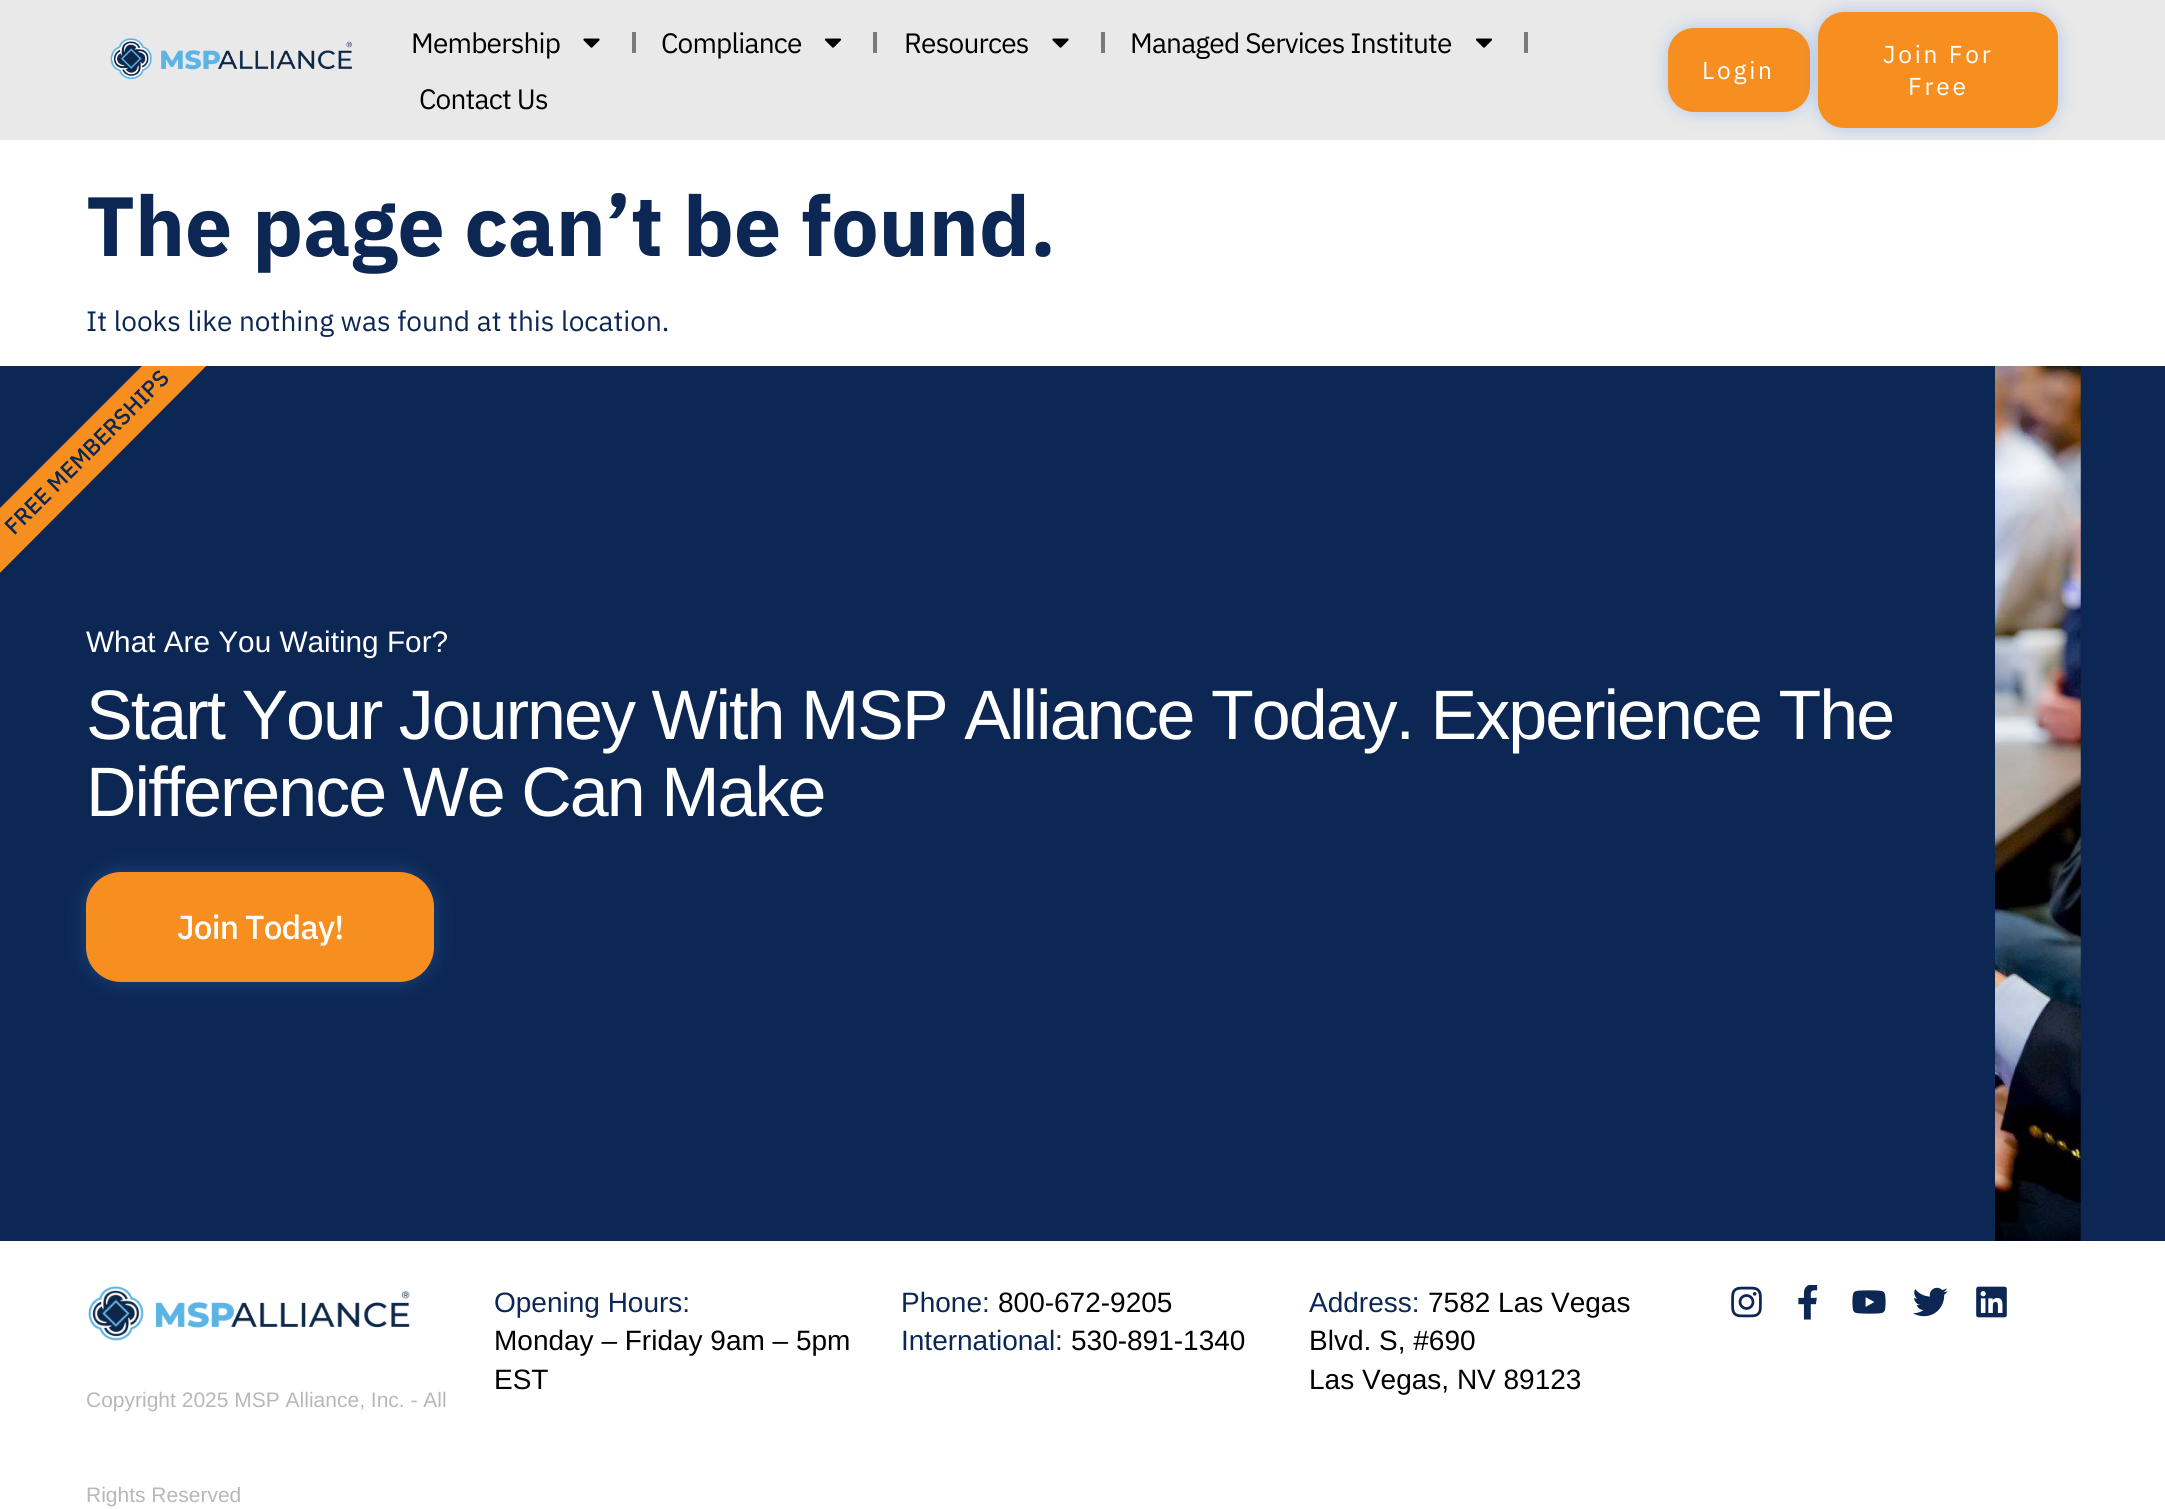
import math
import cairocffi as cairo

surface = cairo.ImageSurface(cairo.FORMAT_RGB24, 2165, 1509)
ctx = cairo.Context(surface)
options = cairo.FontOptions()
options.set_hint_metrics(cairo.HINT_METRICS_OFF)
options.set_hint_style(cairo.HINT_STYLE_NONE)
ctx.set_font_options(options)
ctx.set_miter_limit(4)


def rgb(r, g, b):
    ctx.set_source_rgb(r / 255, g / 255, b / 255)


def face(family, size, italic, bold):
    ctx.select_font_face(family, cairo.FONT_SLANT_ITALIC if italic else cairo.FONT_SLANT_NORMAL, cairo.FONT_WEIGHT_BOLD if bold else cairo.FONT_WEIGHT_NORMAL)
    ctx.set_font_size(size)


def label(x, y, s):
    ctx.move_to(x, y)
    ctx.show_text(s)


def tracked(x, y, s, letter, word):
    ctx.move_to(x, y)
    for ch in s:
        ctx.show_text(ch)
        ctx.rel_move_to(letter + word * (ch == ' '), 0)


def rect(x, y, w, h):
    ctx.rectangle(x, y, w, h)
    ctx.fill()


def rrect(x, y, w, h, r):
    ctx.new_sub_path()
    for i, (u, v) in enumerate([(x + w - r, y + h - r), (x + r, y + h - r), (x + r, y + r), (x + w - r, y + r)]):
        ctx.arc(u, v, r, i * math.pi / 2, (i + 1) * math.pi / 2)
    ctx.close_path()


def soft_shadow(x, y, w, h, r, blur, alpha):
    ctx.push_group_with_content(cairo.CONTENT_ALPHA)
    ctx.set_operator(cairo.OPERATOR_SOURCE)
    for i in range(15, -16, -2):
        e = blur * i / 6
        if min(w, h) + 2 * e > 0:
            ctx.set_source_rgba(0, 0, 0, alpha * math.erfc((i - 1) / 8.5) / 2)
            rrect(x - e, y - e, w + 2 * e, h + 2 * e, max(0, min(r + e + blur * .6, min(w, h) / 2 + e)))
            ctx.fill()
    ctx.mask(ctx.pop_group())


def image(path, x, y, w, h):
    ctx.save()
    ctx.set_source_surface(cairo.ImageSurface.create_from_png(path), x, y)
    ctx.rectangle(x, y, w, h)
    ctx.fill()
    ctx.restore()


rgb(255, 255, 255)
ctx.paint()
rgb(233, 233, 233)
rect(0, 0, 2165, 140)
image('image0.png', 110, 38, 242, 42)
face('IBM Plex Sans', 28, 0, 0)
rgb(0, 0, 0)
tracked(411, 53, 'Membership', -0.8, 0)
image('image1.png', 583, 38, 17, 10)
rgb(122, 122, 122)
rect(632, 32, 4, 21)
rgb(0, 0, 0)
tracked(661, 53, 'Compliance', -0.8, 0)
image('image2.png', 824, 38, 18, 10)
rgb(122, 122, 122)
rect(873, 32, 4, 21)
rgb(0, 0, 0)
tracked(904, 53, 'Resources', -0.8, 0)
image('image1.png', 1052, 38, 17, 10)
rgb(122, 122, 122)
rect(1101, 32, 4, 21)
rgb(0, 0, 0)
tracked(1130, 53, 'Managed Services Institute', -0.8, 0)
image('image2.png', 1475, 38, 18, 10)
rgb(122, 122, 122)
rect(1524, 32, 4, 21)
rgb(0, 0, 0)
tracked(419, 109, 'Contact Us', -0.8, 0)
rgb(64, 129, 229)
soft_shadow(1668, 28, 142, 84, 26, 9, 0.35)
rgb(247, 143, 32)
rrect(1668, 28, 142, 84, 26)
ctx.fill()
face('IBM Plex Sans', 24.5, 0, 0)
rgb(255, 255, 255)
tracked(1702, 79, 'Login', 2.75, 0)
rgb(64, 129, 229)
soft_shadow(1818, 12, 240, 116, 26, 9, 0.35)
rgb(247, 143, 32)
rrect(1818, 12, 240, 116, 26)
ctx.fill()
rgb(255, 255, 255)
tracked(1883, 63, 'Join For', 2.75, 0)
tracked(1908, 95, 'Free', 2.75, 0)
face('IBM Plex Sans', 84, 0, 1)
rgb(12, 39, 83)
label(86, 256, 'The page can’t be found.')
face('IBM Plex Sans', 28, 0, 0)
label(86, 331, 'It looks like nothing was found at this location.')
rect(0, 366, 2165, 875)
ctx.save()
ctx.rectangle(0, 366, 263, 262)
ctx.clip()
rgb(247, 143, 32)
ctx.new_path()
ctx.move_to(-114, 622)
ctx.line_to(257, 251)
ctx.line_to(289, 283)
ctx.line_to(-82, 655)
ctx.close_path()
ctx.fill()
ctx.restore()
face('IBM Plex Sans Medium', 22.75, 0, 0)
ctx.save()
ctx.translate(14, 536)
ctx.rotate(-45 * math.pi / 180)
label(0, 0, 'FREE MEMBERSHIPS')
ctx.restore()
image('image3.png', 1995, 366, 86, 875)
face('Liberation Sans', 29.75, 0, 0)
rgb(255, 255, 255)
label(86, 652, 'What Are You Waiting For?')
face('Liberation Sans', 70, 0, 0)
tracked(86, 739, 'Start Your Journey With MSP Alliance Today. Experience The', -1.98, 0)
tracked(86, 816, 'Difference We Can Make', -1.98, 0)
rgb(64, 129, 229)
soft_shadow(86, 872, 348, 110, 35, 9, 0.35)
rgb(247, 143, 32)
rrect(88, 874, 344, 106, 33)
ctx.fill_preserve()
ctx.set_line_width(4)
ctx.stroke()
face('IBM Plex Sans Medium', 33.25, 0, 0)
rgb(255, 255, 255)
tracked(177, 939, 'Join Today!', -0.8, 0)
face('Liberation Sans', 28, 0, 0)
rgb(12, 39, 83)
label(494, 1312, 'Opening Hours:')
rgb(0, 0, 0)
label(494, 1350, 'Monday – Friday 9am – 5pm')
label(494, 1389, 'EST')
rgb(12, 39, 83)
label(901, 1312, 'Phone:')
rgb(0, 0, 0)
label(998, 1312, '800-672-9205')
rgb(12, 39, 83)
label(901, 1350, 'International:')
rgb(0, 0, 0)
label(1071, 1350, '530-891-1340')
rgb(12, 39, 83)
label(1309, 1312, 'Address:')
rgb(0, 0, 0)
label(1428, 1312, '7582 Las Vegas')
label(1309, 1350, 'Blvd. S, #690')
label(1309, 1389, 'Las Vegas, NV 89123')
image('image4.png', 1731, 1286, 31, 32)
image('image5.png', 1798, 1285, 20, 35)
image('image6.png', 1852, 1290, 34, 24)
image('image7.png', 1913, 1287, 35, 30)
image('image8.png', 1976, 1286, 31, 32)
image('image9.png', 88, 1286, 322, 55)
face('Liberation Sans', 21, 0, 0)
rgb(184, 184, 184)
label(86, 1407, 'Copyright 2025 MSP Alliance, Inc. - All')
label(86, 1502, 'Rights Reserved')
surface.write_to_png('render.png')
